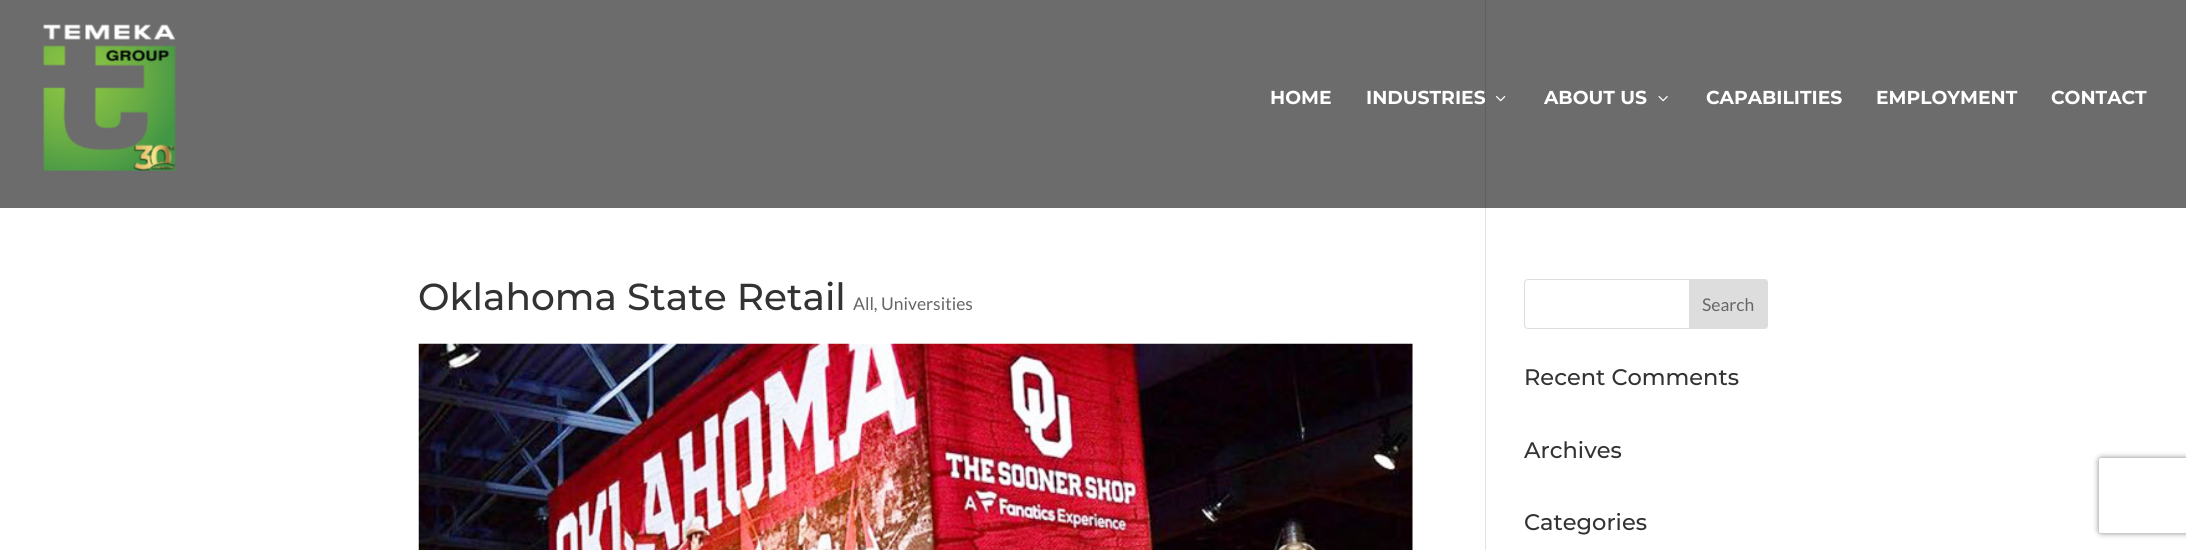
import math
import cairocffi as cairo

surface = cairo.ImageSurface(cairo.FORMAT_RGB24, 2186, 550)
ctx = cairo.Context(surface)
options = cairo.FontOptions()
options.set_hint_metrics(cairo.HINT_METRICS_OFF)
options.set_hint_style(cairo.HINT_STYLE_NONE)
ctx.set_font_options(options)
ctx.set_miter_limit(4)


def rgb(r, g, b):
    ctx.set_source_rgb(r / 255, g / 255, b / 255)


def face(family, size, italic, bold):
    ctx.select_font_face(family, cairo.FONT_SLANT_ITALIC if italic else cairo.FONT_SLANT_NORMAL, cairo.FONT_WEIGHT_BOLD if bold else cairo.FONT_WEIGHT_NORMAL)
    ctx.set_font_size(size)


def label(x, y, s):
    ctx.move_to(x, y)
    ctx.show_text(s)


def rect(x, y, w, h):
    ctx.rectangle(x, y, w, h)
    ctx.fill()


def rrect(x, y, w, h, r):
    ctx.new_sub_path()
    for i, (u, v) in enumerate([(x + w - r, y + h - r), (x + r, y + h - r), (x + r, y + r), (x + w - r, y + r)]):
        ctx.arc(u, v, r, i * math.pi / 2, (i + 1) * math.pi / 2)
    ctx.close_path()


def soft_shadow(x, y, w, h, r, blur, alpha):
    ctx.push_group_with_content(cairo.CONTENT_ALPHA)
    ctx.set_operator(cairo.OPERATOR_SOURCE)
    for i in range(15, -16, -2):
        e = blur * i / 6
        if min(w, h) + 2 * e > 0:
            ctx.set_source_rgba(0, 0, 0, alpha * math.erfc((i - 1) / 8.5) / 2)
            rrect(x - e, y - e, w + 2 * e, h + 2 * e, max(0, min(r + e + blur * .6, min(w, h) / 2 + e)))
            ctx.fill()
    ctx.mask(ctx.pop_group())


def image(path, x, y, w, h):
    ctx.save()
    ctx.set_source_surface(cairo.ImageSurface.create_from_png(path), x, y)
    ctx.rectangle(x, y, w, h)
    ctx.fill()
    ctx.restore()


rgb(255, 255, 255)
ctx.paint()
rgb(108, 108, 108)
rect(0, 0, 2186, 208)
image('image0.png', 43, 24, 133, 147)
face('Montserrat', 18.75, 0, 1)
rgb(255, 255, 255)
label(1270, 104, 'HOME')
label(1366, 104, 'INDUSTRIES')
image('image1.png', 1496, 96, 10, 6)
label(1544, 104, 'ABOUT US')
image('image2.png', 1658, 96, 10, 6)
label(1706, 104, 'CAPABILITIES')
label(1876, 104, 'EMPLOYMENT')
label(2051, 104, 'CONTACT')
rgb(226, 226, 226)
rect(1485, 208, 1, 342)
rgb(96, 96, 96)
rect(1485, 0, 1, 208)
face('Montserrat Medium', 37.5, 0, 0)
rgb(51, 51, 51)
label(418, 310, 'Oklahoma State Retail')
face('Lato', 17.5, 0, 0)
rgb(102, 102, 102)
label(853, 310, 'All, Universities')
image('image3.png', 418, 343, 995, 207)
rrect(1524.5, 279.5, 243, 49, 3.5)
rgb(221, 221, 221)
ctx.set_line_width(1)
ctx.stroke()
ctx.new_path()
ctx.move_to(1689.5, 279.5)
ctx.line_to(1764, 279.5)
ctx.curve_to(1766, 279.5, 1767.5, 281, 1767.5, 283)
ctx.line_to(1767.5, 325)
ctx.curve_to(1767.5, 327, 1766, 328.5, 1764, 328.5)
ctx.line_to(1689.5, 328.5)
ctx.close_path()
ctx.fill_preserve()
ctx.stroke()
rgb(102, 102, 102)
label(1702, 311, 'Search')
face('Montserrat Medium', 22.5, 0, 0)
rgb(51, 51, 51)
label(1524, 385, 'Recent Comments')
label(1524, 458, 'Archives')
label(1524, 530, 'Categories')
ctx.save()
ctx.set_fill_rule(cairo.FILL_RULE_EVEN_ODD)
ctx.new_path()
ctx.move_to(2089, 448)
ctx.line_to(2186, 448)
ctx.line_to(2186, 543)
ctx.line_to(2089, 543)
ctx.close_path()
ctx.move_to(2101.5, 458)
ctx.line_to(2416.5, 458)
ctx.curve_to(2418, 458, 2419, 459, 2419, 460.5)
ctx.line_to(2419, 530.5)
ctx.curve_to(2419, 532, 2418, 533, 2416.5, 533)
ctx.line_to(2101.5, 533)
ctx.curve_to(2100, 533, 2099, 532, 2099, 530.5)
ctx.line_to(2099, 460.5)
ctx.curve_to(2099, 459, 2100, 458, 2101.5, 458)
ctx.close_path()
ctx.clip()
rgb(128, 128, 128)
soft_shadow(2099, 458, 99, 75, 2.5, 3, 1)
ctx.restore()
surface.write_to_png('render.png')
